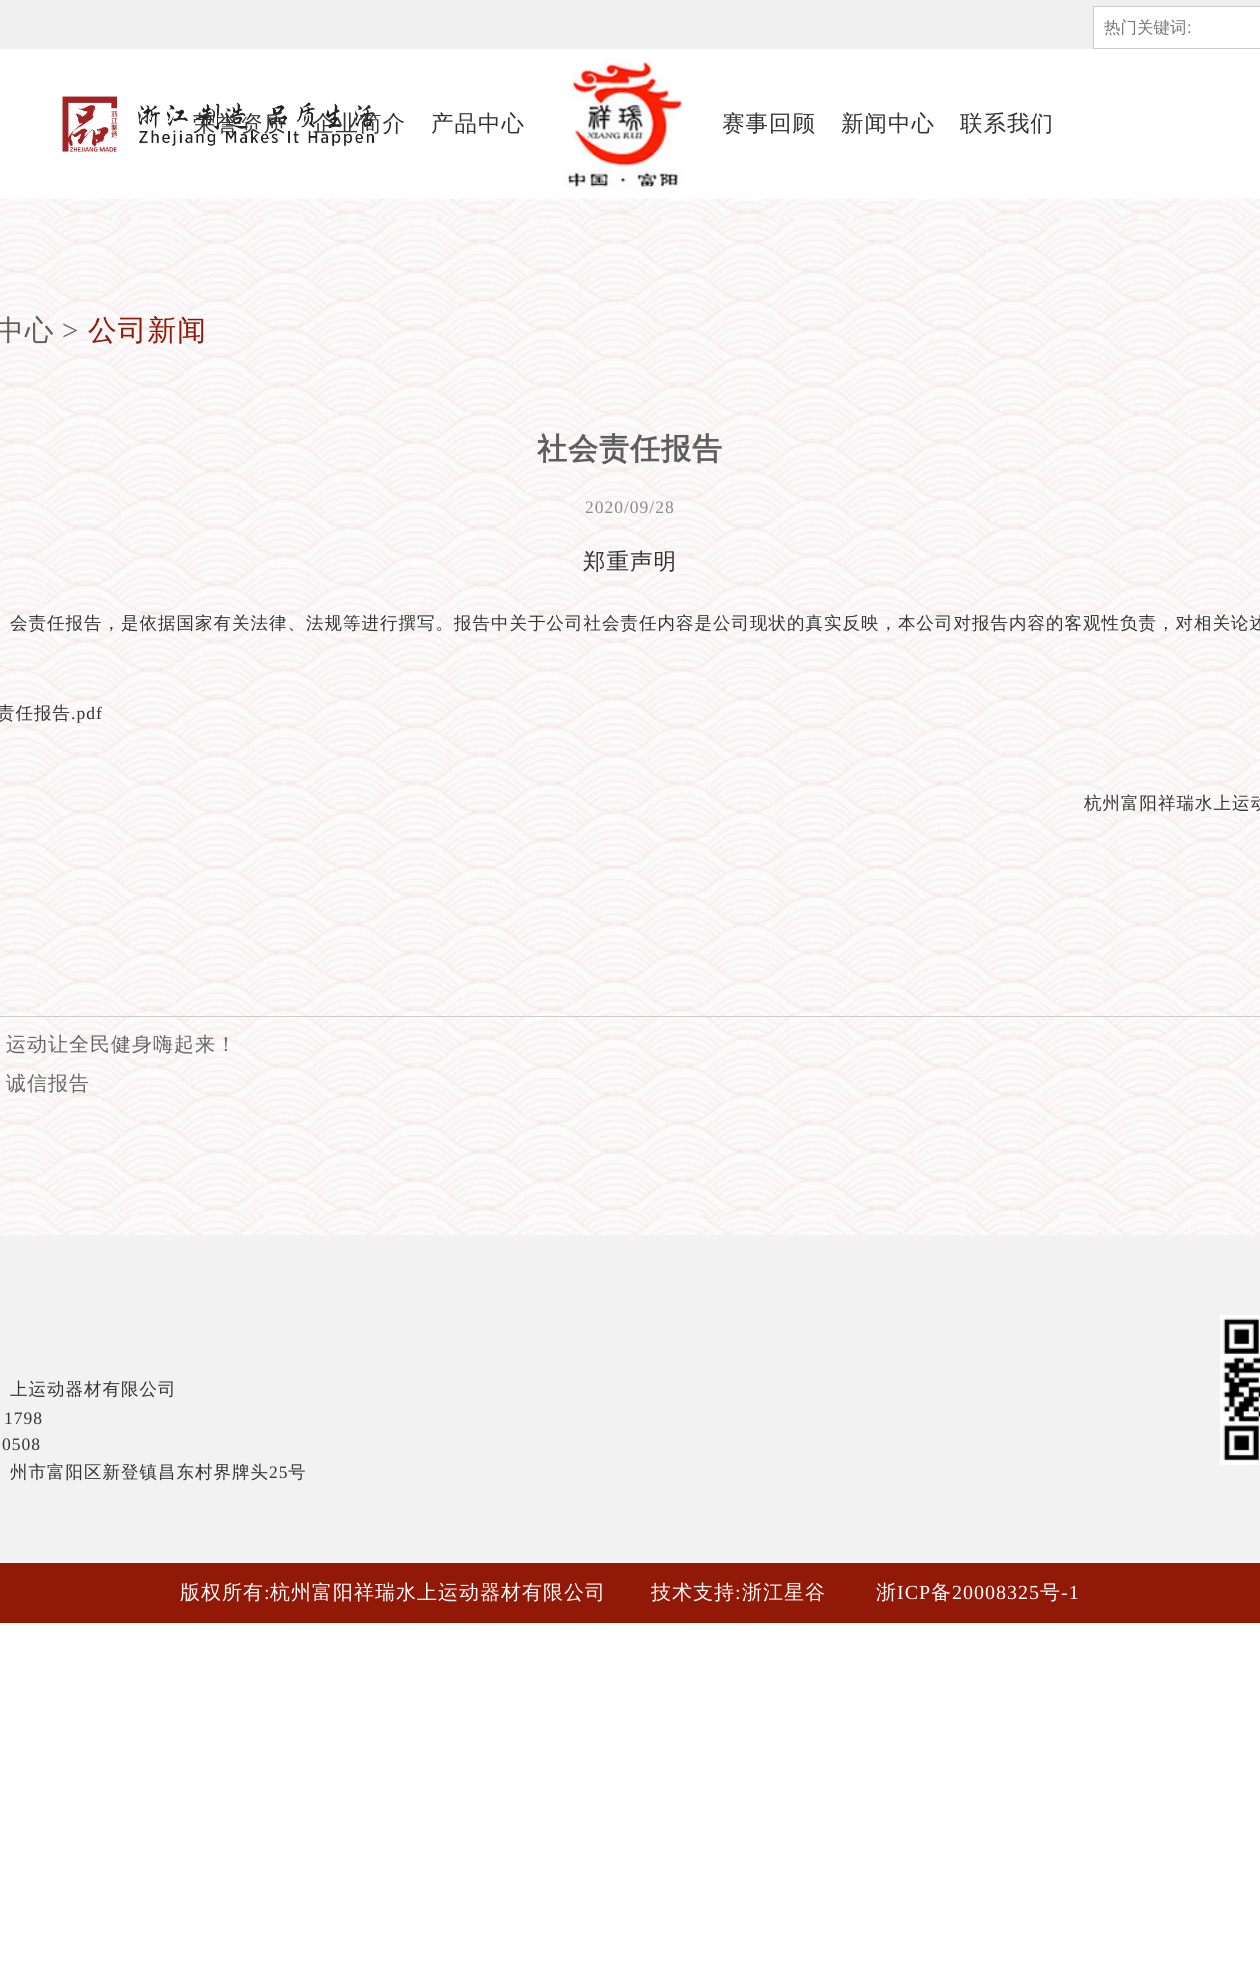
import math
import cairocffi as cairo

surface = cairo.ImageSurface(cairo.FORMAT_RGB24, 1260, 1979)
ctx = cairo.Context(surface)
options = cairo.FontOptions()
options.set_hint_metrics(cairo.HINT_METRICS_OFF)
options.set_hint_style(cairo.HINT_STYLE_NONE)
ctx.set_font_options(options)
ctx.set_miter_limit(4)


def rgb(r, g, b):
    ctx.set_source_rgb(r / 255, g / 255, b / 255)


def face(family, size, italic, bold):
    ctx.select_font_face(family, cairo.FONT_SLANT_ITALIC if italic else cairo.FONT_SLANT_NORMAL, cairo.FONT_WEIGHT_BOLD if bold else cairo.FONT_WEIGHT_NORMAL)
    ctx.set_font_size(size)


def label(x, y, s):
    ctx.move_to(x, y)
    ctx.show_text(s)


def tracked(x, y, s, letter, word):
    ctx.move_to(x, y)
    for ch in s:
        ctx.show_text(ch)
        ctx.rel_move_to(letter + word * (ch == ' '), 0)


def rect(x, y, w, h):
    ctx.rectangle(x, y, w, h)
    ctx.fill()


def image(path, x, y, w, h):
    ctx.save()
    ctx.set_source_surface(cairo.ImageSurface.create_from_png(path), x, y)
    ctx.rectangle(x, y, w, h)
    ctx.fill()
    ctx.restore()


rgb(255, 255, 255)
ctx.paint()
rgb(240, 240, 240)
rect(0, 0, 1260, 49)
rgb(255, 255, 255)
ctx.rectangle(1093.5, 6.5, 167, 42)
ctx.fill_preserve()
rgb(204, 204, 204)
ctx.set_line_width(1)
ctx.stroke()
face('WenQuanYi Zen Hei Medium', 16.5, 0, 0)
rgb(117, 117, 117)
label(1104, 33, '热门关键词')
face('Liberation Sans', 16.5, 0, 0)
label(1187, 33, ':')
image('image0.png', 62, 96, 313, 56)
face('WenQuanYi Zen Hei Medium', 22.5, 0, 0)
rgb(51, 51, 51)
tracked(193, 131, '荣誉资质', 1, 0)
tracked(312, 131, '企业简介', 1, 0)
tracked(431, 131, '产品中心', 1, 0)
image('image1.png', 564, 58, 119, 131)
tracked(722, 131, '赛事回顾', 1, 0)
tracked(841, 131, '新闻中心', 1, 0)
tracked(960, 131, '联系我们', 1, 0)
image('image2.png', 0, 198, 1260, 1037)
face('WenQuanYi Zen Hei Medium', 28.75, 0, 0)
rgb(94, 94, 94)
tracked(-5, 340, '中心', 1, 0)
face('Liberation Serif', 28.75, 0, 0)
tracked(62, 340, '>', 1, 0)
face('WenQuanYi Zen Hei Medium', 28.75, 0, 0)
rgb(146, 24, 7)
tracked(88, 340, '公司新闻', 1, 0)
face('WenQuanYi Zen Hei', 30, 0, 1)
rgb(94, 94, 94)
tracked(537, 459, '社会责任报告', 1, 0)
face('Liberation Serif', 17.5, 0, 0)
rgb(137, 138, 137)
tracked(585, 513, '2020/09/28', 1, 0)
face('WenQuanYi Zen Hei Medium', 22.5, 0, 0)
rgb(51, 51, 51)
tracked(583, 569, '郑重声明', 1, 0)
face('WenQuanYi Zen Hei Medium', 17.5, 0, 0)
tracked(10, 629, '会责任报告，是依据国家有关法律、法规等进行撰写。报告中关于公司社会责任内容是公司现状的真实反映，本公司对报告内容的客观性负责，对相关论述', 1, 0)
tracked(-3, 719, '责任报告', 1, 0)
face('Liberation Serif', 17.5, 0, 0)
tracked(71, 719, '.pdf', 1, 0)
face('WenQuanYi Zen Hei Medium', 17.5, 0, 0)
tracked(1084, 809, '杭州富阳祥瑞水上运动', 1, 0)
rgb(204, 204, 204)
rect(0, 1016, 1260, 1)
face('WenQuanYi Zen Hei Medium', 20, 0, 0)
rgb(102, 102, 102)
tracked(6, 1051, '运动让全民健身嗨起来！', 1, 0)
tracked(6, 1090, '诚信报告', 1, 0)
rgb(242, 242, 242)
rect(0, 1235, 1260, 328)
face('WenQuanYi Zen Hei Medium', 17.5, 0, 0)
rgb(51, 51, 51)
tracked(10, 1395, '上运动器材有限公司', 1, 0)
face('Liberation Serif', 17.5, 0, 0)
tracked(4, 1424, '1798', 1, 0)
tracked(2, 1450, '0508', 1, 0)
face('WenQuanYi Zen Hei Medium', 17.5, 0, 0)
tracked(10, 1478, '州市富阳区新登镇昌东村界牌头', 1, 0)
face('Liberation Serif', 17.5, 0, 0)
tracked(269, 1478, '25', 1, 0)
face('WenQuanYi Zen Hei Medium', 17.5, 0, 0)
tracked(288, 1478, '号', 1, 0)
image('image3.png', 1220, 1315, 40, 150)
rgb(146, 24, 7)
rect(0, 1563, 1260, 60)
face('WenQuanYi Zen Hei Medium', 20, 0, 0)
rgb(255, 255, 255)
tracked(180, 1599, '版权所有', 1, 0)
face('Liberation Serif', 20, 0, 0)
tracked(264, 1599, ':', 1, 0)
face('WenQuanYi Zen Hei Medium', 20, 0, 0)
tracked(270, 1599, '杭州富阳祥瑞水上运动器材有限公司', 1, 0)
tracked(651, 1599, '技术支持', 1, 0)
face('Liberation Serif', 20, 0, 0)
tracked(735, 1599, ':', 1, 0)
face('WenQuanYi Zen Hei Medium', 20, 0, 0)
tracked(742, 1599, '浙江星谷', 1, 0)
tracked(876, 1599, '浙', 1, 0)
face('Liberation Serif', 20, 0, 0)
tracked(897, 1599, 'ICP', 1, 0)
face('WenQuanYi Zen Hei Medium', 20, 0, 0)
tracked(931, 1599, '备', 1, 0)
face('Liberation Serif', 20, 0, 0)
tracked(952, 1599, '20008325', 1, 0)
face('WenQuanYi Zen Hei Medium', 20, 0, 0)
tracked(1040, 1599, '号', 1, 0)
face('Liberation Serif', 20, 0, 0)
tracked(1061, 1599, '-1', 1, 0)
surface.write_to_png('render.png')
